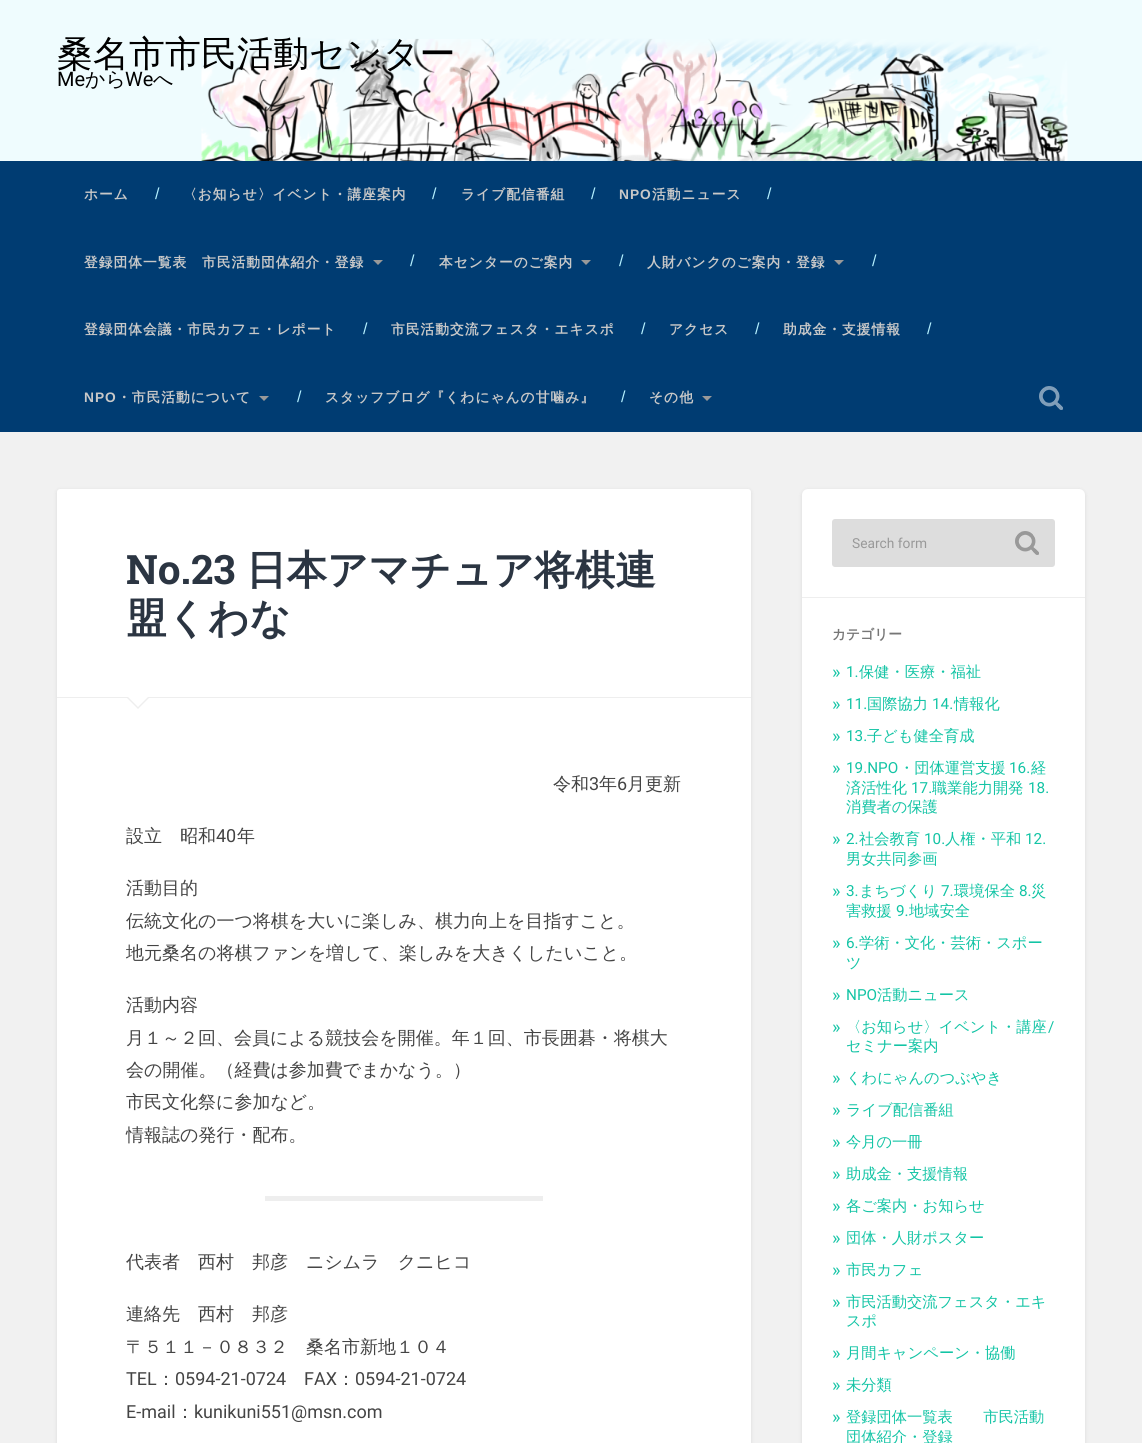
import math
import cairocffi as cairo

surface = cairo.ImageSurface(cairo.FORMAT_RGB24, 1142, 1443)
ctx = cairo.Context(surface)
options = cairo.FontOptions()
options.set_hint_metrics(cairo.HINT_METRICS_OFF)
options.set_hint_style(cairo.HINT_STYLE_NONE)
ctx.set_font_options(options)
ctx.set_miter_limit(4)


def rgb(r, g, b):
    ctx.set_source_rgb(r / 255, g / 255, b / 255)


def face(family, size, italic, bold):
    ctx.select_font_face(family, cairo.FONT_SLANT_ITALIC if italic else cairo.FONT_SLANT_NORMAL, cairo.FONT_WEIGHT_BOLD if bold else cairo.FONT_WEIGHT_NORMAL)
    ctx.set_font_size(size)


def label(x, y, s):
    ctx.move_to(x, y)
    ctx.show_text(s)


def tracked(x, y, s, letter, word):
    ctx.move_to(x, y)
    for ch in s:
        ctx.show_text(ch)
        ctx.rel_move_to(letter + word * (ch == ' '), 0)


def rect(x, y, w, h):
    ctx.rectangle(x, y, w, h)
    ctx.fill()


def rrect(x, y, w, h, r):
    ctx.new_sub_path()
    for i, (u, v) in enumerate([(x + w - r, y + h - r), (x + r, y + h - r), (x + r, y + r), (x + w - r, y + r)]):
        ctx.arc(u, v, r, i * math.pi / 2, (i + 1) * math.pi / 2)
    ctx.close_path()


def soft_shadow(x, y, w, h, r, blur, alpha):
    ctx.push_group_with_content(cairo.CONTENT_ALPHA)
    ctx.set_operator(cairo.OPERATOR_SOURCE)
    for i in range(15, -16, -2):
        e = blur * i / 6
        if min(w, h) + 2 * e > 0:
            ctx.set_source_rgba(0, 0, 0, alpha * math.erfc((i - 1) / 8.5) / 2)
            rrect(x - e, y - e, w + 2 * e, h + 2 * e, max(0, min(r + e + blur * .6, min(w, h) / 2 + e)))
            ctx.fill()
    ctx.mask(ctx.pop_group())


def image(path, x, y, w, h):
    ctx.save()
    ctx.set_source_surface(cairo.ImageSurface.create_from_png(path), x, y)
    ctx.rectangle(x, y, w, h)
    ctx.fill()
    ctx.restore()


rgb(241, 241, 241)
ctx.paint()
image('image0.png', 0, 0, 1142, 161)
face('WenQuanYi Zen Hei Medium', 36, 0, 0)
rgb(0, 0, 0)
label(57, 66, '桑名市市民活動センター')
face('Roboto', 20, 0, 0)
label(57, 86, 'Me')
face('WenQuanYi Zen Hei Medium', 20, 0, 0)
label(85, 86, 'から')
face('Roboto', 20, 0, 0)
label(125, 86, 'We')
face('WenQuanYi Zen Hei Medium', 20, 0, 0)
label(153, 86, 'へ')
rgb(0, 60, 114)
rect(0, 161, 1142, 271)
face('WenQuanYi Zen Hei', 13.75, 0, 1)
rgb(200, 200, 200)
tracked(84, 199, 'ホーム', 1, 0)
face('Liberation Sans', 16, 0, 0)
rgb(180, 240, 255)
label(155, 199, '/')
face('WenQuanYi Zen Hei', 13.75, 0, 1)
rgb(200, 200, 200)
tracked(183, 199, '〈お知らせ〉イベント・講座案内', 1, 0)
face('Liberation Sans', 16, 0, 0)
rgb(180, 240, 255)
label(432, 199, '/')
face('WenQuanYi Zen Hei', 13.75, 0, 1)
rgb(200, 200, 200)
tracked(461, 199, 'ライブ配信番組', 1, 0)
face('Liberation Sans', 16, 0, 0)
rgb(180, 240, 255)
label(591, 199, '/')
face('Liberation Sans', 13.75, 0, 1)
rgb(200, 200, 200)
tracked(619, 199, 'NPO', 1, 0)
face('WenQuanYi Zen Hei', 13.75, 0, 1)
tracked(652, 199, '活動ニュース', 1, 0)
face('Liberation Sans', 16, 0, 0)
rgb(180, 240, 255)
label(767, 199, '/')
face('WenQuanYi Zen Hei', 13.75, 0, 1)
rgb(200, 200, 200)
tracked(84, 267, '登録団体一覧表　市民活動団体紹介・登録', 1, 0)
rgb(153, 153, 153)
ctx.new_path()
ctx.move_to(373, 260)
ctx.line_to(383, 260)
ctx.line_to(378, 265)
ctx.close_path()
ctx.fill()
face('Liberation Sans', 16, 0, 0)
rgb(180, 240, 255)
label(410, 266, '/')
face('WenQuanYi Zen Hei', 13.75, 0, 1)
rgb(200, 200, 200)
tracked(439, 267, '本センターのご案内', 1, 0)
rgb(153, 153, 153)
ctx.new_path()
ctx.move_to(581, 260)
ctx.line_to(591, 260)
ctx.line_to(586, 265)
ctx.close_path()
ctx.fill()
face('Liberation Sans', 16, 0, 0)
rgb(180, 240, 255)
label(619, 266, '/')
face('WenQuanYi Zen Hei', 13.75, 0, 1)
rgb(200, 200, 200)
tracked(647, 267, '人財バンクのご案内・登録', 1, 0)
rgb(153, 153, 153)
ctx.new_path()
ctx.move_to(834, 260)
ctx.line_to(844, 260)
ctx.line_to(839, 265)
ctx.close_path()
ctx.fill()
face('Liberation Sans', 16, 0, 0)
rgb(180, 240, 255)
label(872, 266, '/')
face('WenQuanYi Zen Hei', 13.75, 0, 1)
rgb(200, 200, 200)
tracked(84, 334, '登録団体会議・市民カフェ・レポート', 1, 0)
face('Liberation Sans', 16, 0, 0)
rgb(180, 240, 255)
label(363, 334, '/')
face('WenQuanYi Zen Hei', 13.75, 0, 1)
rgb(200, 200, 200)
tracked(391, 334, '市民活動交流フェスタ・エキスポ', 1, 0)
face('Liberation Sans', 16, 0, 0)
rgb(180, 240, 255)
label(641, 334, '/')
face('WenQuanYi Zen Hei', 13.75, 0, 1)
rgb(200, 200, 200)
tracked(669, 334, 'アクセス', 1, 0)
face('Liberation Sans', 16, 0, 0)
rgb(180, 240, 255)
label(755, 334, '/')
face('WenQuanYi Zen Hei', 13.75, 0, 1)
rgb(200, 200, 200)
tracked(783, 334, '助成金・支援情報', 1, 0)
face('Liberation Sans', 16, 0, 0)
rgb(180, 240, 255)
label(927, 334, '/')
face('Liberation Sans', 13.75, 0, 1)
rgb(200, 200, 200)
tracked(84, 402, 'NPO', 1, 0)
face('WenQuanYi Zen Hei', 13.75, 0, 1)
tracked(117, 402, '・市民活動について', 1, 0)
rgb(153, 153, 153)
ctx.new_path()
ctx.move_to(259, 396)
ctx.line_to(269, 396)
ctx.line_to(264, 401)
ctx.close_path()
ctx.fill()
face('Liberation Sans', 16, 0, 0)
rgb(180, 240, 255)
label(297, 402, '/')
face('WenQuanYi Zen Hei', 13.75, 0, 1)
rgb(200, 200, 200)
tracked(325, 402, 'スタッフブログ『くわにゃんの甘噛み』', 1, 0)
face('Liberation Sans', 16, 0, 0)
rgb(180, 240, 255)
label(621, 402, '/')
face('WenQuanYi Zen Hei', 13.75, 0, 1)
rgb(200, 200, 200)
tracked(649, 402, 'その他', 1, 0)
rgb(153, 153, 153)
ctx.new_path()
ctx.move_to(702, 396)
ctx.line_to(712, 396)
ctx.line_to(707, 401)
ctx.close_path()
ctx.fill()
image('image1.png', 1039, 386, 24, 24)
rgb(0, 0, 0)
soft_shadow(57, 490, 694, 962, 3, 2, 0.1)
rgb(255, 255, 255)
rrect(57, 489, 694, 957, 3)
ctx.fill()
rgb(238, 238, 238)
rect(57, 697, 694, 1)
face('Roboto Slab', 40.5, 0, 1)
rgb(43, 53, 66)
label(126, 584, 'No.23')
face('WenQuanYi Zen Hei', 40.5, 0, 1)
label(246, 584, '日本アマチュア将棋連')
label(126, 632, '盟くわな')
rgb(238, 238, 238)
ctx.new_path()
ctx.move_to(126, 697)
ctx.line_to(150, 697)
ctx.line_to(138, 709)
ctx.close_path()
ctx.fill()
rgb(255, 255, 255)
ctx.new_path()
ctx.move_to(127, 696)
ctx.line_to(149, 696)
ctx.line_to(138, 707)
ctx.close_path()
ctx.fill()
face('WenQuanYi Zen Hei Medium', 18, 0, 0)
rgb(68, 68, 68)
label(553, 790, '令和')
face('Roboto', 18, 0, 0)
label(589, 790, '3')
face('WenQuanYi Zen Hei Medium', 18, 0, 0)
label(599, 790, '年')
face('Roboto', 18, 0, 0)
label(617, 790, '6')
face('WenQuanYi Zen Hei Medium', 18, 0, 0)
label(627, 790, '月更新')
label(126, 842, '設立　昭和')
face('Roboto', 18, 0, 0)
label(216, 842, '40')
face('WenQuanYi Zen Hei Medium', 18, 0, 0)
label(237, 842, '年')
label(126, 894, '活動目的')
label(126, 927, '伝統文化の一つ将棋を大いに楽しみ、棋力向上を目指すこと。')
label(126, 959, '地元桑名の将棋ファンを増して、楽しみを大きくしたいこと。')
label(126, 1011, '活動内容')
label(126, 1044, '月１～２回、会員による競技会を開催。年１回、市長囲碁・将棋大')
label(126, 1076, '会の開催。（経費は参加費でまかなう。）')
label(126, 1108, '市民文化祭に参加など。')
label(126, 1141, '情報誌の発行・配布。')
rgb(238, 238, 238)
rect(265, 1196, 278, 5)
rgb(68, 68, 68)
label(126, 1268, '代表者　西村　邦彦　ニシムラ　クニヒコ')
label(126, 1320, '連絡先　西村　邦彦')
label(126, 1353, '〒５１１－０８３２　桑名市新地１０４')
face('Roboto', 18, 0, 0)
label(126, 1385, 'TEL')
face('WenQuanYi Zen Hei Medium', 18, 0, 0)
label(157, 1385, '：')
face('Roboto', 18, 0, 0)
label(175, 1385, '0594-21-0724')
label(304, 1385, 'FAX')
face('WenQuanYi Zen Hei Medium', 18, 0, 0)
label(337, 1385, '：')
face('Roboto', 18, 0, 0)
label(355, 1385, '0594-21-0724')
label(126, 1418, 'E-mail')
face('WenQuanYi Zen Hei Medium', 18, 0, 0)
label(176, 1418, '：')
face('Roboto', 18, 0, 0)
label(194, 1418, 'kunikuni551@msn.com')
rgb(0, 0, 0)
soft_shadow(802, 490, 283, 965, 6, 2, 0.1)
rgb(255, 255, 255)
rrect(802, 489, 283, 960, 6)
ctx.fill()
rgb(221, 221, 221)
rrect(832, 519, 223, 48, 3)
ctx.fill()
face('Roboto', 13.75, 0, 0)
rgb(153, 153, 153)
label(852, 548, 'Search form')
image('image2.png', 1015, 531, 24, 24)
rgb(238, 238, 238)
rect(802, 597, 283, 1)
face('WenQuanYi Zen Hei', 13.75, 0, 1)
rgb(118, 118, 118)
label(832, 639, 'カテゴリー')
face('Roboto', 18, 0, 0)
rgb(19, 196, 165)
label(832, 678, '»')
face('Roboto', 15.25, 0, 0)
label(846, 677, '1.')
face('WenQuanYi Zen Hei Medium', 15.25, 0, 0)
label(859, 677, '保健・医療・福祉')
face('Roboto', 18, 0, 0)
label(832, 710, '»')
face('Roboto', 15.25, 0, 0)
label(846, 709, '11.')
face('WenQuanYi Zen Hei Medium', 15.25, 0, 0)
label(867, 709, '国際協力')
face('Roboto', 15.25, 0, 0)
label(932, 709, '14.')
face('WenQuanYi Zen Hei Medium', 15.25, 0, 0)
label(954, 709, '情報化')
face('Roboto', 18, 0, 0)
label(832, 742, '»')
face('Roboto', 15.25, 0, 0)
label(846, 741, '13.')
face('WenQuanYi Zen Hei Medium', 15.25, 0, 0)
label(867, 741, '子ども健全育成')
face('Roboto', 18, 0, 0)
label(832, 774, '»')
face('Roboto', 15.25, 0, 0)
label(846, 773, '19.NPO')
face('WenQuanYi Zen Hei Medium', 15.25, 0, 0)
label(899, 773, '・団体運営支援')
face('Roboto', 15.25, 0, 0)
label(1009, 773, '16.')
face('WenQuanYi Zen Hei Medium', 15.25, 0, 0)
label(1031, 773, '経')
label(846, 793, '済活性化')
face('Roboto', 15.25, 0, 0)
label(911, 793, '17.')
face('WenQuanYi Zen Hei Medium', 15.25, 0, 0)
label(932, 793, '職業能力開発')
face('Roboto', 15.25, 0, 0)
label(1028, 793, '18.')
face('WenQuanYi Zen Hei Medium', 15.25, 0, 0)
label(846, 812, '消費者の保護')
face('Roboto', 18, 0, 0)
label(832, 845, '»')
face('Roboto', 15.25, 0, 0)
label(846, 844, '2.')
face('WenQuanYi Zen Hei Medium', 15.25, 0, 0)
label(859, 844, '社会教育')
face('Roboto', 15.25, 0, 0)
label(924, 844, '10.')
face('WenQuanYi Zen Hei Medium', 15.25, 0, 0)
label(945, 844, '人権・平和')
face('Roboto', 15.25, 0, 0)
label(1025, 844, '12.')
face('WenQuanYi Zen Hei Medium', 15.25, 0, 0)
label(846, 864, '男女共同参画')
face('Roboto', 18, 0, 0)
label(832, 897, '»')
face('Roboto', 15.25, 0, 0)
label(846, 896, '3.')
face('WenQuanYi Zen Hei Medium', 15.25, 0, 0)
label(859, 896, 'まちづくり')
face('Roboto', 15.25, 0, 0)
label(941, 896, '7.')
face('WenQuanYi Zen Hei Medium', 15.25, 0, 0)
label(954, 896, '環境保全')
face('Roboto', 15.25, 0, 0)
label(1019, 896, '8.')
face('WenQuanYi Zen Hei Medium', 15.25, 0, 0)
label(1031, 896, '災')
label(846, 916, '害救援')
face('Roboto', 15.25, 0, 0)
label(896, 916, '9.')
face('WenQuanYi Zen Hei Medium', 15.25, 0, 0)
label(909, 916, '地域安全')
face('Roboto', 18, 0, 0)
label(832, 949, '»')
face('Roboto', 15.25, 0, 0)
label(846, 948, '6.')
face('WenQuanYi Zen Hei Medium', 15.25, 0, 0)
label(859, 948, '学術・文化・芸術・スポー')
label(846, 968, 'ツ')
face('Roboto', 18, 0, 0)
label(832, 1001, '»')
face('Roboto', 15.25, 0, 0)
label(846, 1000, 'NPO')
face('WenQuanYi Zen Hei Medium', 15.25, 0, 0)
label(877, 1000, '活動ニュース')
face('Roboto', 18, 0, 0)
label(832, 1033, '»')
face('WenQuanYi Zen Hei Medium', 15.25, 0, 0)
label(846, 1032, '〈お知らせ〉イベント・講座')
face('Roboto', 15.25, 0, 0)
label(1048, 1032, '/')
face('WenQuanYi Zen Hei Medium', 15.25, 0, 0)
label(846, 1051, 'セミナー案内')
face('Roboto', 18, 0, 0)
label(832, 1084, '»')
face('WenQuanYi Zen Hei Medium', 15.25, 0, 0)
label(846, 1083, 'くわにゃんのつぶやき')
face('Roboto', 18, 0, 0)
label(832, 1116, '»')
face('WenQuanYi Zen Hei Medium', 15.25, 0, 0)
label(846, 1115, 'ライブ配信番組')
face('Roboto', 18, 0, 0)
label(832, 1148, '»')
face('WenQuanYi Zen Hei Medium', 15.25, 0, 0)
label(846, 1147, '今月の一冊')
face('Roboto', 18, 0, 0)
label(832, 1180, '»')
face('WenQuanYi Zen Hei Medium', 15.25, 0, 0)
label(846, 1179, '助成金・支援情報')
face('Roboto', 18, 0, 0)
label(832, 1212, '»')
face('WenQuanYi Zen Hei Medium', 15.25, 0, 0)
label(846, 1211, '各ご案内・お知らせ')
face('Roboto', 18, 0, 0)
label(832, 1244, '»')
face('WenQuanYi Zen Hei Medium', 15.25, 0, 0)
label(846, 1243, '団体・人財ポスター')
face('Roboto', 18, 0, 0)
label(832, 1276, '»')
face('WenQuanYi Zen Hei Medium', 15.25, 0, 0)
label(846, 1275, '市民カフェ')
face('Roboto', 18, 0, 0)
label(832, 1308, '»')
face('WenQuanYi Zen Hei Medium', 15.25, 0, 0)
label(846, 1307, '市民活動交流フェスタ・エキ')
label(846, 1326, 'スポ')
face('Roboto', 18, 0, 0)
label(832, 1359, '»')
face('WenQuanYi Zen Hei Medium', 15.25, 0, 0)
label(846, 1358, '月間キャンペーン・協働')
face('Roboto', 18, 0, 0)
label(832, 1391, '»')
face('WenQuanYi Zen Hei Medium', 15.25, 0, 0)
label(846, 1390, '未分類')
face('Roboto', 18, 0, 0)
label(832, 1423, '»')
face('WenQuanYi Zen Hei Medium', 15.25, 0, 0)
label(846, 1422, '登録団体一覧表　　市民活動')
label(846, 1442, '団体紹介・登録')
surface.write_to_png('render.png')
